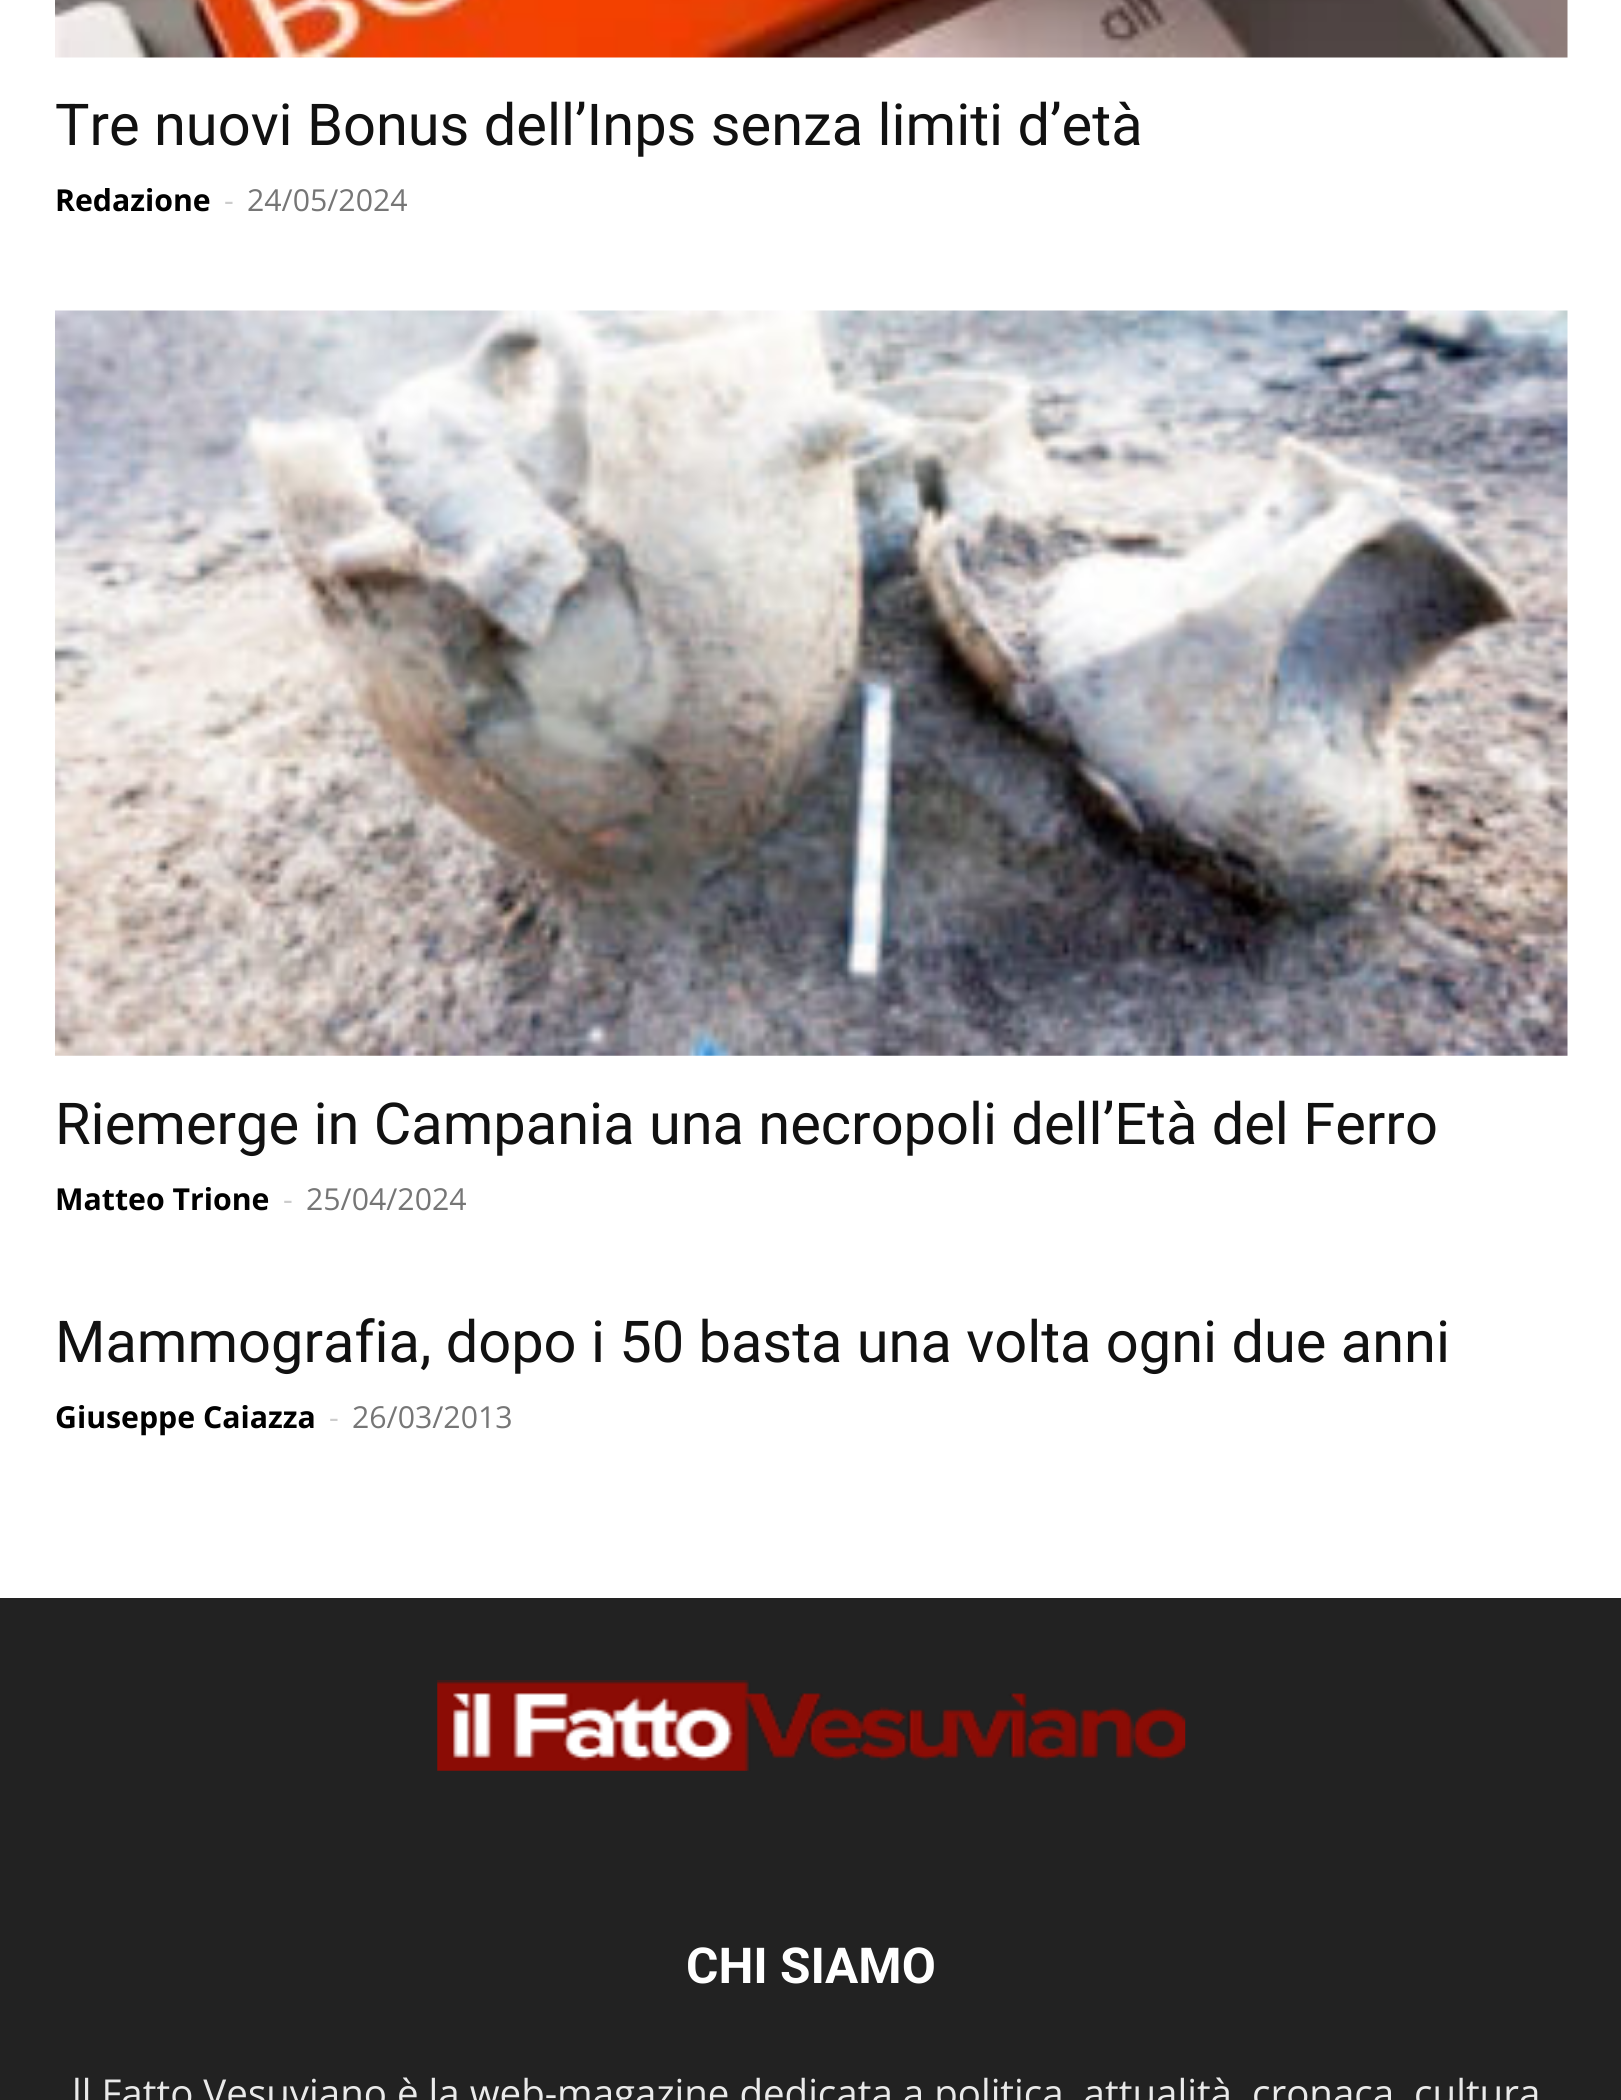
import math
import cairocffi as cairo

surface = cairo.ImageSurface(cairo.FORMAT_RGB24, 1621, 2100)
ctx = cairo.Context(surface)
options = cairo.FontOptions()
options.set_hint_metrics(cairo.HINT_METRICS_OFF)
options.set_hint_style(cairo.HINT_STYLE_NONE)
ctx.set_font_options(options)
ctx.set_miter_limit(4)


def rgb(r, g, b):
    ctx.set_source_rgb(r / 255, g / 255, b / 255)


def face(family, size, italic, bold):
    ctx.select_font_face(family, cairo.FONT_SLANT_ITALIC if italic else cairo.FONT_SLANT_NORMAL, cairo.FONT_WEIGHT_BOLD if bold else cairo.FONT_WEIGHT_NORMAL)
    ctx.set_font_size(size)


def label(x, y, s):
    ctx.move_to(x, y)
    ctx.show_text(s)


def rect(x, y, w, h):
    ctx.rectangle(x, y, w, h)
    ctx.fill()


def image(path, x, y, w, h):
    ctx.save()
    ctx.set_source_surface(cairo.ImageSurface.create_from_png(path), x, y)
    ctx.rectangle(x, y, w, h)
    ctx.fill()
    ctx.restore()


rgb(255, 255, 255)
ctx.paint()
image('image0.png', 55, 0, 1513, 58)
face('Roboto', 57.75, 0, 0)
rgb(17, 17, 17)
label(55, 145, 'Tre nuovi Bonus dell’Inps senza limiti d’età')
face('Open Sans', 30.25, 0, 1)
rgb(0, 0, 0)
label(55, 211, 'Redazione')
face('Open Sans', 30.25, 0, 0)
rgb(204, 204, 204)
label(224, 211, '-')
rgb(118, 118, 118)
label(247, 211, '24/05/2024')
image('image1.png', 55, 310, 1513, 746)
face('Roboto', 57.75, 0, 0)
rgb(17, 17, 17)
label(55, 1144, 'Riemerge in Campania una necropoli dell’Età del Ferro')
face('Open Sans', 30.25, 0, 1)
rgb(0, 0, 0)
label(55, 1210, 'Matteo Trione')
face('Open Sans', 30.25, 0, 0)
rgb(204, 204, 204)
label(283, 1210, '-')
rgb(118, 118, 118)
label(306, 1210, '25/04/2024')
face('Roboto', 57.75, 0, 0)
rgb(17, 17, 17)
label(55, 1362, 'Mammografia, dopo i 50 basta una volta ogni due anni')
face('Open Sans', 30.25, 0, 1)
rgb(0, 0, 0)
label(55, 1428, 'Giuseppe Caiazza')
face('Open Sans', 30.25, 0, 0)
rgb(204, 204, 204)
label(329, 1428, '-')
rgb(118, 118, 118)
label(352, 1428, '26/03/2013')
rgb(34, 34, 34)
rect(0, 1598, 1621, 502)
image('image2.png', 437, 1680, 749, 91)
face('Roboto', 49.5, 0, 1)
rgb(255, 255, 255)
label(686, 1983, 'CHI SIAMO')
face('Open Sans', 38.5, 0, 0)
rgb(234, 234, 234)
label(72, 2107, 'll Fatto Vesuviano è la web-magazine dedicata a politica, attualità, cronaca, cultura')
surface.write_to_png('render.png')
